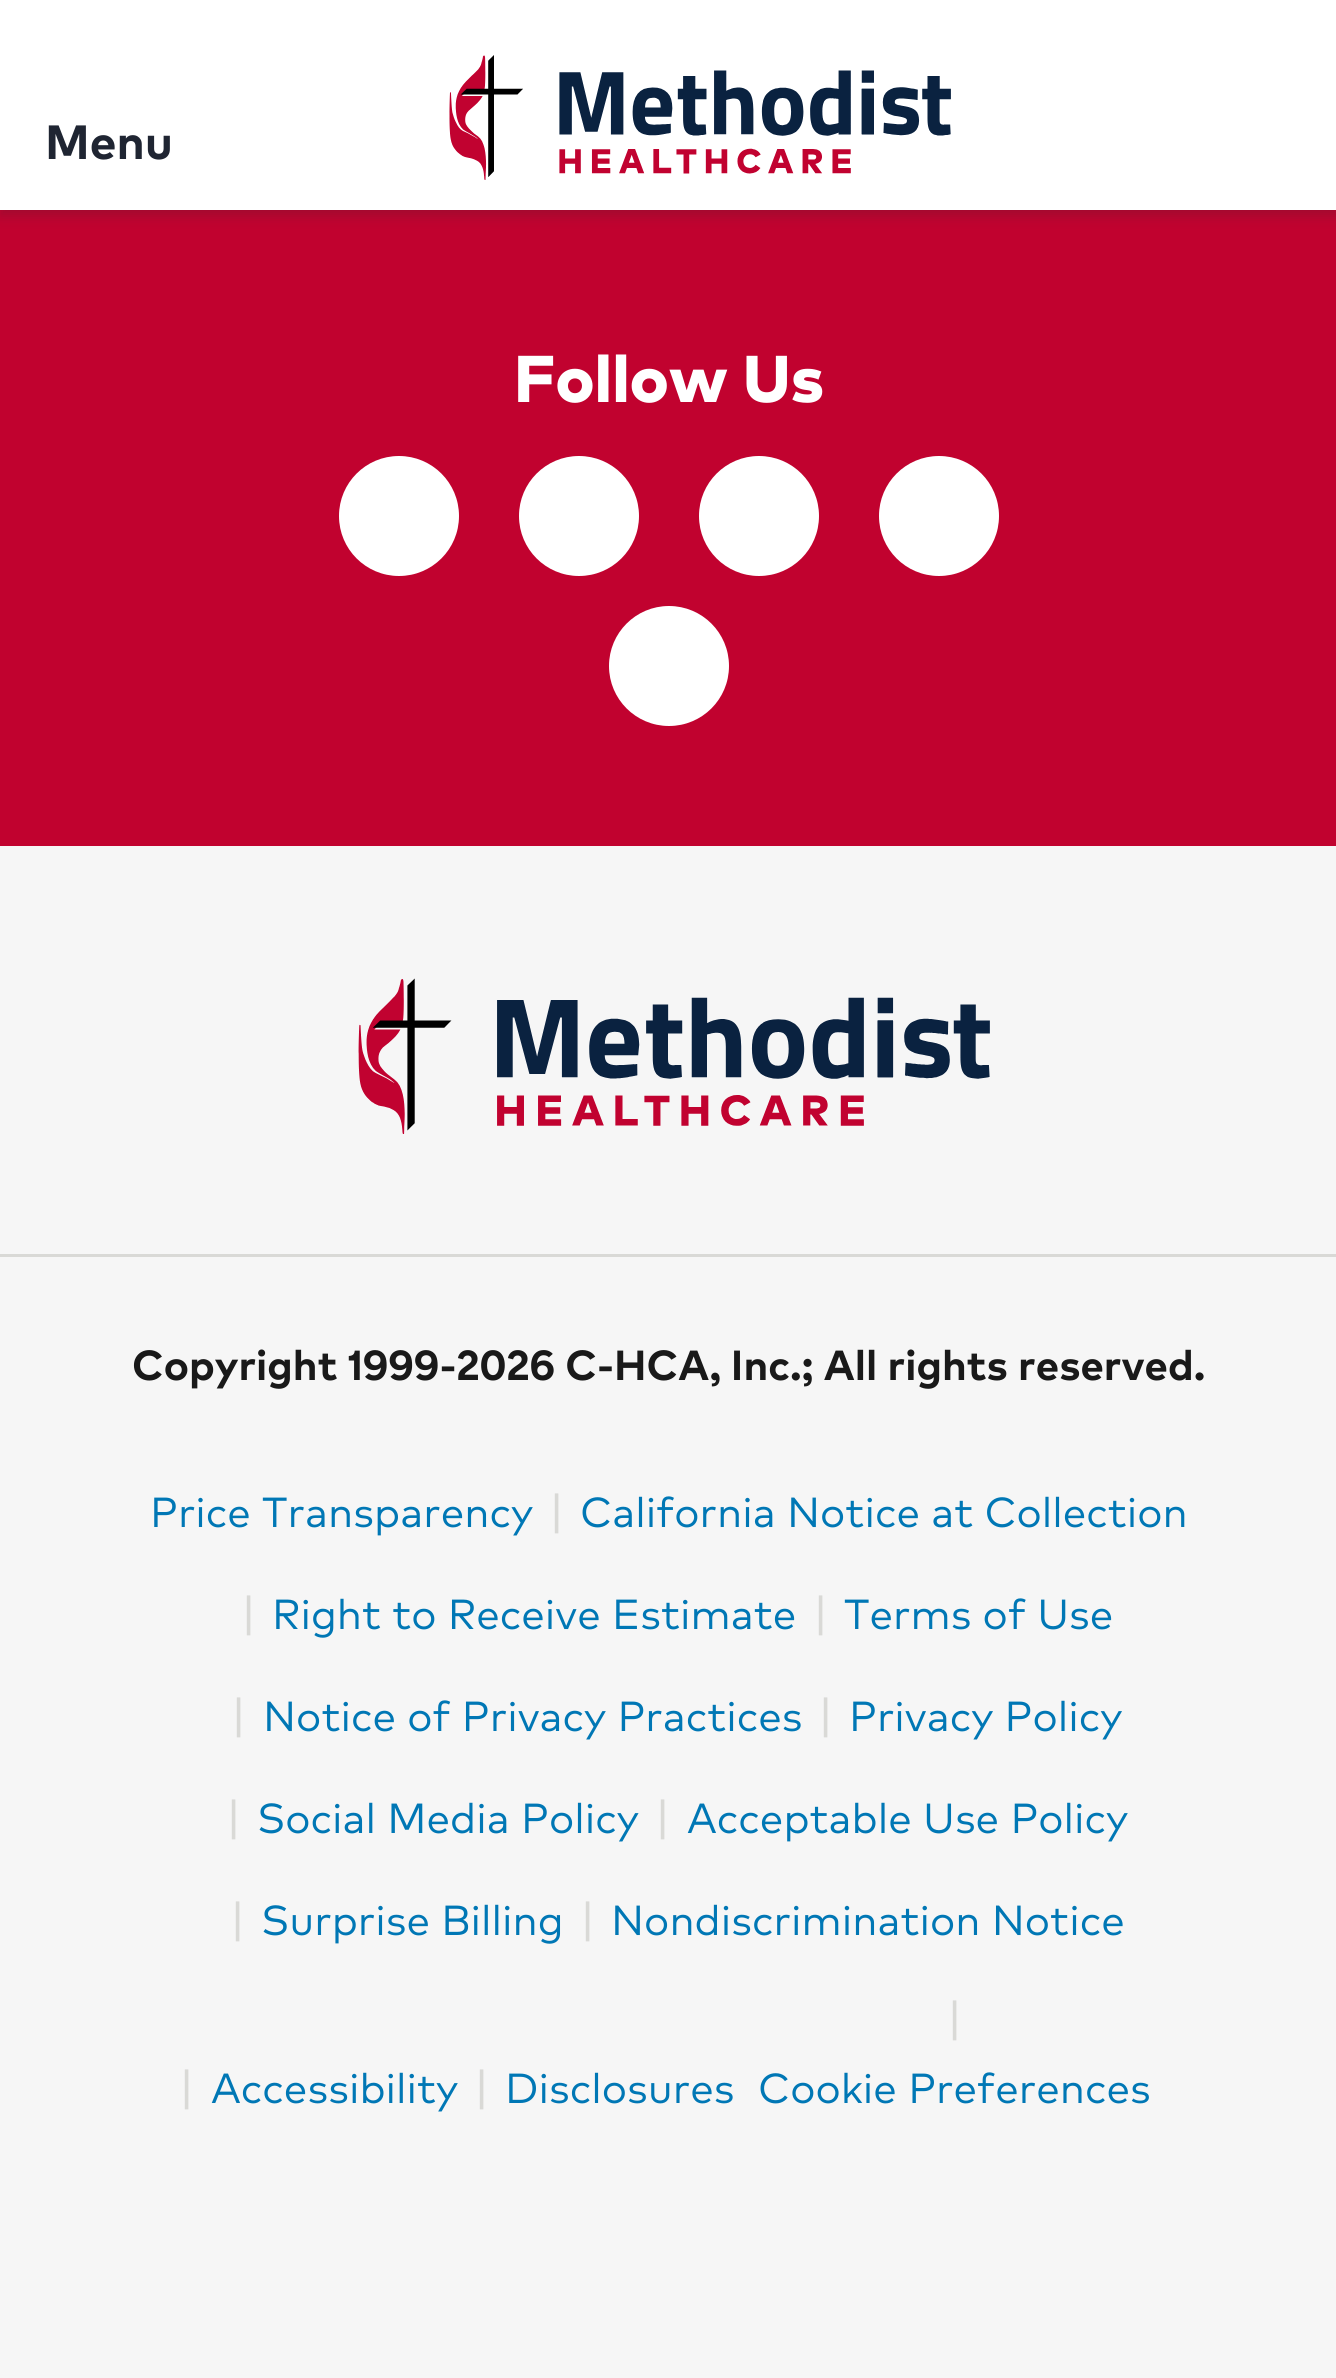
import math
import cairocffi as cairo

surface = cairo.ImageSurface(cairo.FORMAT_RGB24, 1336, 2378)
ctx = cairo.Context(surface)
options = cairo.FontOptions()
options.set_hint_metrics(cairo.HINT_METRICS_OFF)
options.set_hint_style(cairo.HINT_STYLE_NONE)
ctx.set_font_options(options)
ctx.set_miter_limit(4)


def rgb(r, g, b):
    ctx.set_source_rgb(r / 255, g / 255, b / 255)


def face(family, size, italic, bold):
    ctx.select_font_face(family, cairo.FONT_SLANT_ITALIC if italic else cairo.FONT_SLANT_NORMAL, cairo.FONT_WEIGHT_BOLD if bold else cairo.FONT_WEIGHT_NORMAL)
    ctx.set_font_size(size)


def label(x, y, s):
    ctx.move_to(x, y)
    ctx.show_text(s)


def rect(x, y, w, h):
    ctx.rectangle(x, y, w, h)
    ctx.fill()


def rrect(x, y, w, h, r):
    ctx.new_sub_path()
    for i, (u, v) in enumerate([(x + w - r, y + h - r), (x + r, y + h - r), (x + r, y + r), (x + w - r, y + r)]):
        ctx.arc(u, v, r, i * math.pi / 2, (i + 1) * math.pi / 2)
    ctx.close_path()


def soft_shadow(x, y, w, h, r, blur, alpha):
    ctx.push_group_with_content(cairo.CONTENT_ALPHA)
    ctx.set_operator(cairo.OPERATOR_SOURCE)
    for i in range(15, -16, -2):
        e = blur * i / 6
        if min(w, h) + 2 * e > 0:
            ctx.set_source_rgba(0, 0, 0, alpha * math.erfc((i - 1) / 8.5) / 2)
            rrect(x - e, y - e, w + 2 * e, h + 2 * e, max(0, min(r + e + blur * .6, min(w, h) / 2 + e)))
            ctx.fill()
    ctx.mask(ctx.pop_group())


def image(path, x, y, w, h):
    ctx.save()
    ctx.set_source_surface(cairo.ImageSurface.create_from_png(path), x, y)
    ctx.rectangle(x, y, w, h)
    ctx.fill()
    ctx.restore()


rgb(246, 246, 246)
ctx.paint()
rgb(193, 2, 47)
rect(0, 210, 1336, 636)
rgb(31, 37, 50)
soft_shadow(0, 6, 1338, 210, 0, 6, 0.2)
rgb(255, 255, 255)
rect(0, 0, 1336, 210)
face('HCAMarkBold', 48, 0, 1)
rgb(31, 37, 50)
label(45, 159, 'Menu')
image('image0.png', 449, 55, 502, 125)
face('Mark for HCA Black', 66, 0, 0)
rgb(255, 255, 255)
label(514, 402, 'Follow Us')
ctx.new_path()
ctx.arc(399, 516, 60, 0, 2 * math.pi)
ctx.fill()
ctx.arc(579, 516, 60, 0, 2 * math.pi)
ctx.fill()
ctx.arc(759, 516, 60, 0, 2 * math.pi)
ctx.fill()
ctx.arc(939, 516, 60, 0, 2 * math.pi)
ctx.fill()
ctx.arc(669, 666, 60, 0, 2 * math.pi)
ctx.fill()
rgb(217, 217, 214)
rect(0, 1254, 1336, 3)
image('image1.png', 358, 978, 632, 156)
face('HCAMarkBold', 42, 0, 1)
rgb(25, 25, 25)
label(132, 1380, 'Copyright 1999-2026 C-HCA, Inc.; All rights reserved.')
face('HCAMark', 42, 0, 0)
rgb(0, 119, 181)
label(150, 1527, 'Price Transparency')
face('HCAMark', 48, 0, 0)
rgb(217, 217, 214)
label(548, 1527, '|')
face('HCAMark', 42, 0, 0)
rgb(0, 119, 181)
label(580, 1527, 'California Notice at Collection')
face('HCAMark', 48, 0, 0)
rgb(217, 217, 214)
label(240, 1629, '|')
face('HCAMark', 42, 0, 0)
rgb(0, 119, 181)
label(272, 1629, 'Right to Receive Estimate')
face('HCAMark', 48, 0, 0)
rgb(217, 217, 214)
label(812, 1629, '|')
face('HCAMark', 42, 0, 0)
rgb(0, 119, 181)
label(844, 1629, 'Terms of Use')
face('HCAMark', 48, 0, 0)
rgb(217, 217, 214)
label(230, 1731, '|')
face('HCAMark', 42, 0, 0)
rgb(0, 119, 181)
label(263, 1731, 'Notice of Privacy Practices')
face('HCAMark', 48, 0, 0)
rgb(217, 217, 214)
label(817, 1731, '|')
face('HCAMark', 42, 0, 0)
rgb(0, 119, 181)
label(849, 1731, 'Privacy Policy')
face('HCAMark', 48, 0, 0)
rgb(217, 217, 214)
label(225, 1833, '|')
face('HCAMark', 42, 0, 0)
rgb(0, 119, 181)
label(257, 1833, 'Social Media Policy')
face('HCAMark', 48, 0, 0)
rgb(217, 217, 214)
label(654, 1833, '|')
face('HCAMark', 42, 0, 0)
rgb(0, 119, 181)
label(687, 1833, 'Acceptable Use Policy')
face('HCAMark', 48, 0, 0)
rgb(217, 217, 214)
label(229, 1935, '|')
face('HCAMark', 42, 0, 0)
rgb(0, 119, 181)
label(261, 1935, 'Surprise Billing')
face('HCAMark', 48, 0, 0)
rgb(217, 217, 214)
label(579, 1935, '|')
face('HCAMark', 42, 0, 0)
rgb(0, 119, 181)
label(611, 1935, 'Nondiscrimination Notice')
face('HCAMark', 48, 0, 0)
rgb(217, 217, 214)
label(178, 2103, '|')
face('HCAMark', 42, 0, 0)
rgb(0, 119, 181)
label(211, 2103, 'Accessibility')
face('HCAMark', 48, 0, 0)
rgb(217, 217, 214)
label(473, 2103, '|')
face('HCAMark', 42, 0, 0)
rgb(0, 119, 181)
label(505, 2103, 'Disclosures')
face('HCAMark', 48, 0, 0)
rgb(217, 217, 214)
label(946, 2034, '|')
face('HCAMark', 42, 0, 0)
rgb(0, 119, 181)
label(758, 2103, 'Cookie Preferences')
surface.write_to_png('render.png')
